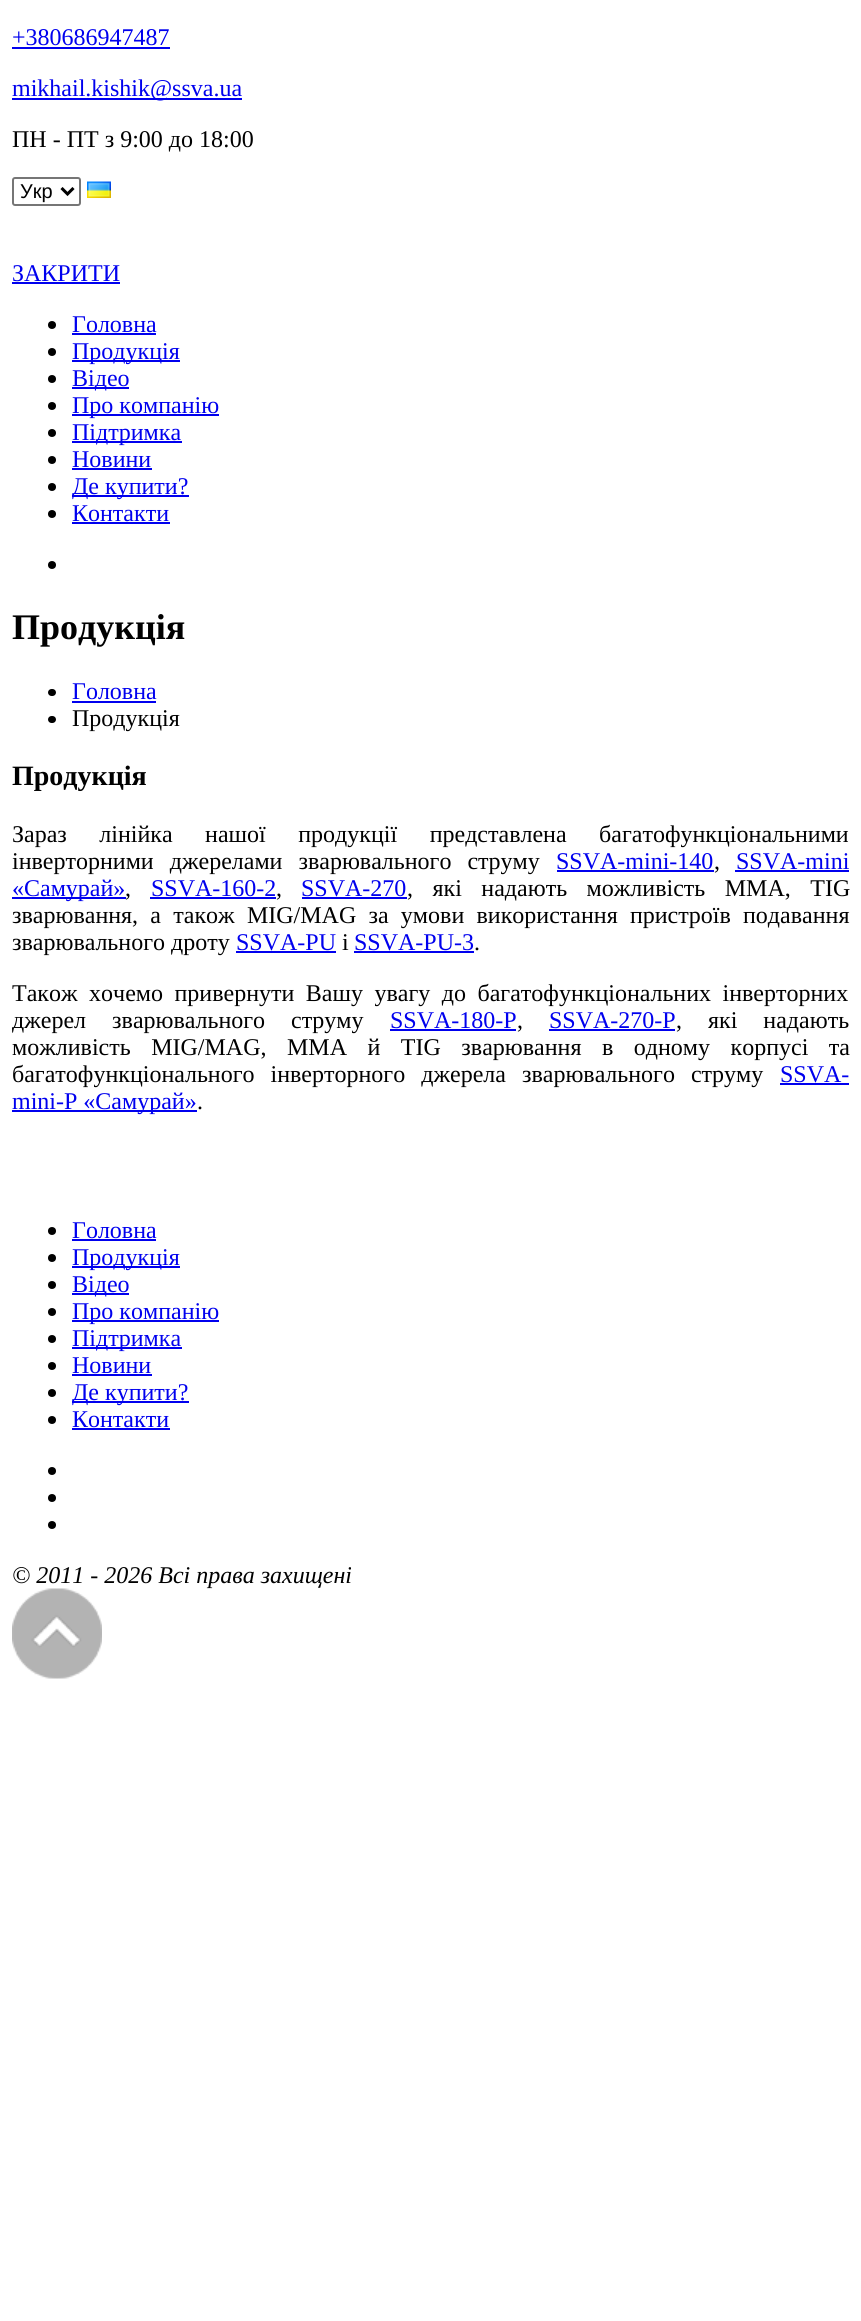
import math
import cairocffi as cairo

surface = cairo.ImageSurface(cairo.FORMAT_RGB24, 861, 2321)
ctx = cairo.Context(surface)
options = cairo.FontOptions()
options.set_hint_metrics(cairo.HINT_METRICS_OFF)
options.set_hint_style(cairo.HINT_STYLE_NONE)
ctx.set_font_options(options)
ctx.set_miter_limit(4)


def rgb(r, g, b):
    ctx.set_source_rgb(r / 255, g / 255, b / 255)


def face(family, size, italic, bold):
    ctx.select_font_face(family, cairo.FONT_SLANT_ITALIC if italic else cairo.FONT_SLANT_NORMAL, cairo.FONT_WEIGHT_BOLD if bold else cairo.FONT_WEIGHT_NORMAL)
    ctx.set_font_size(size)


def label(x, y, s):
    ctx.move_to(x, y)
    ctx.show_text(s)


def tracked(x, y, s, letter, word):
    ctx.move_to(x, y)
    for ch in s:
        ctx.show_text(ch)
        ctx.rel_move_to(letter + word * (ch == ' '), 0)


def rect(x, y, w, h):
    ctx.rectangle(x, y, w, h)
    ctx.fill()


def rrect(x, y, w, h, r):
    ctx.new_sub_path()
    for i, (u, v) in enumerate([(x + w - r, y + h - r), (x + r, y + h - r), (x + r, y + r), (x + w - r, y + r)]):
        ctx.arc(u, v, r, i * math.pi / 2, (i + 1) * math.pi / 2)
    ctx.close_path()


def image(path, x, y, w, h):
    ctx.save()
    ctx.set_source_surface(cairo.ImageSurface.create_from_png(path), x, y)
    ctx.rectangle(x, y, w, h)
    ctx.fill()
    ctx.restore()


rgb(255, 255, 255)
ctx.paint()
face('Liberation Serif', 24, 0, 0)
rgb(0, 0, 238)
label(12, 45, '+380686947487')
rect(12, 47, 158, 2)
rect(12, 98, 230, 2)
label(12, 96, 'mikhail.kishik@ssva.ua')
rgb(0, 0, 0)
label(12, 147, 'ПН - ПТ з 9:00 до 18:00')
rrect(13, 178, 67, 27, 2)
rgb(118, 118, 118)
ctx.stroke()
ctx.new_path()
ctx.move_to(61.5, 188)
ctx.line_to(67.5, 194)
ctx.line_to(73.5, 188)
rgb(0, 0, 0)
ctx.set_line_width(3)
ctx.stroke()
face('Liberation Sans', 20, 0, 0)
label(20, 198, 'Укр')
image('image0.png', 87, 181, 24, 17)
face('Liberation Serif', 24, 0, 0)
rgb(0, 0, 238)
label(12, 281, 'ЗАКРИТИ')
rect(12, 282, 108, 2)
rgb(0, 0, 0)
ctx.new_path()
ctx.arc(52, 325, 4, 0, 2 * math.pi)
ctx.fill()
rgb(0, 0, 238)
label(72, 332, 'Головна')
rect(72, 333, 84, 2)
rgb(0, 0, 0)
ctx.new_path()
ctx.arc(52, 352, 4, 0, 2 * math.pi)
ctx.fill()
rgb(0, 0, 238)
rect(72, 360, 108, 2)
label(72, 359, 'Продукція')
rgb(0, 0, 0)
ctx.new_path()
ctx.arc(52, 379, 4, 0, 2 * math.pi)
ctx.fill()
rgb(0, 0, 238)
rect(72, 387, 57, 2)
label(72, 386, 'Відео')
rgb(0, 0, 0)
ctx.new_path()
ctx.arc(52, 406, 4, 0, 2 * math.pi)
ctx.fill()
rgb(0, 0, 238)
rect(72, 414, 147, 2)
label(72, 413, 'Про компанію')
rgb(0, 0, 0)
ctx.new_path()
ctx.arc(52, 433, 4, 0, 2 * math.pi)
ctx.fill()
rgb(0, 0, 238)
rect(72, 441, 110, 2)
label(72, 440, 'Підтримка')
rgb(0, 0, 0)
ctx.new_path()
ctx.arc(52, 460, 4, 0, 2 * math.pi)
ctx.fill()
rgb(0, 0, 238)
label(72, 467, 'Новини')
rect(72, 468, 80, 2)
rgb(0, 0, 0)
ctx.new_path()
ctx.arc(52, 487, 4, 0, 2 * math.pi)
ctx.fill()
rgb(0, 0, 238)
rect(72, 495, 117, 2)
label(72, 494, 'Де купити?')
rgb(0, 0, 0)
ctx.new_path()
ctx.arc(52, 514, 4, 0, 2 * math.pi)
ctx.fill()
rgb(0, 0, 238)
label(72, 521, 'Контакти')
rect(72, 522, 98, 2)
rgb(0, 0, 0)
ctx.new_path()
ctx.arc(52, 565, 4, 0, 2 * math.pi)
ctx.fill()
face('Liberation Serif', 36, 0, 1)
label(12, 639, 'Продукція')
rrect(48, 689, 8, 7, 3.5)
ctx.fill()
face('Liberation Serif', 24, 0, 0)
rgb(0, 0, 238)
label(72, 699, 'Головна')
rect(72, 701, 84, 2)
rgb(0, 0, 0)
rrect(48, 716, 8, 7, 3.5)
ctx.fill()
label(72, 726, 'Продукція')
face('Liberation Serif', 28, 0, 1)
label(12, 785, 'Продукція')
face('Liberation Serif', 24, 0, 0)
tracked(12, 842, 'Зараз лінійка нашої продукції представлена багатофункціональними', 0, 26.5)
tracked(12, 869, 'інверторними джерелами зварювального струму', 0, 10)
rgb(0, 0, 238)
label(556, 869, 'SSVA-mini-140')
rect(557, 870, 157, 2)
rgb(0, 0, 0)
label(714, 869, ',')
rgb(0, 0, 238)
label(736, 869, 'SSVA-mini')
rect(735, 870, 114, 2)
rect(12, 897, 114, 2)
label(12, 896, '«Самурай»')
rgb(0, 0, 0)
label(125, 896, ',')
rgb(0, 0, 238)
label(151, 896, 'SSVA-160-2')
rect(150, 897, 126, 2)
rgb(0, 0, 0)
label(276, 896, ',')
rgb(0, 0, 238)
label(301, 896, 'SSVA-270')
rect(302, 897, 105, 2)
rgb(0, 0, 0)
tracked(407, 896, ', які надають можливість MMA, TIG', 0, 13.5)
tracked(12, 923, 'зварювання, а також MIG/MAG за умови використання пристроїв подавання', 0, 6.25)
label(12, 950, 'зварювального дроту')
rgb(0, 0, 238)
label(236, 950, 'SSVA-PU')
rect(236, 951, 100, 2)
rgb(0, 0, 0)
label(342, 950, 'і')
rgb(0, 0, 238)
label(354, 950, 'SSVA-PU-3')
rect(354, 951, 120, 2)
rgb(0, 0, 0)
label(474, 950, '.')
tracked(12, 1001, 'Також хочемо привернути Вашу увагу до багатофункціональних інверторних', 0, 5.5)
tracked(12, 1028, 'джерел зварювального струму', 0, 20)
rgb(0, 0, 238)
label(390, 1028, 'SSVA-180-P')
rect(390, 1029, 126, 2)
rgb(0, 0, 0)
label(517, 1028, ',')
rgb(0, 0, 238)
label(549, 1028, 'SSVA-270-P')
rect(549, 1029, 126, 2)
rgb(0, 0, 0)
tracked(676, 1028, ', які надають', 0, 20)
tracked(12, 1055, 'можливість MIG/MAG, MMA й TIG зварювання в одному корпусі та', 0, 14.5)
tracked(12, 1082, 'багатофункціонального інверторного джерела зварювального струму', 0, 10)
rgb(0, 0, 238)
label(780, 1082, 'SSVA-')
rect(780, 1083, 69, 2)
rect(12, 1110, 185, 2)
label(12, 1109, 'mini-P «Самурай»')
rgb(0, 0, 0)
label(197, 1109, '.')
ctx.new_path()
ctx.arc(52, 1231, 4, 0, 2 * math.pi)
ctx.fill()
rgb(0, 0, 238)
label(72, 1238, 'Головна')
rect(72, 1239, 84, 2)
rgb(0, 0, 0)
ctx.new_path()
ctx.arc(52, 1258, 4, 0, 2 * math.pi)
ctx.fill()
rgb(0, 0, 238)
rect(72, 1266, 108, 2)
label(72, 1265, 'Продукція')
rgb(0, 0, 0)
ctx.new_path()
ctx.arc(52, 1285, 4, 0, 2 * math.pi)
ctx.fill()
rgb(0, 0, 238)
rect(72, 1293, 57, 2)
label(72, 1292, 'Відео')
rgb(0, 0, 0)
ctx.new_path()
ctx.arc(52, 1312, 4, 0, 2 * math.pi)
ctx.fill()
rgb(0, 0, 238)
rect(72, 1320, 147, 2)
label(72, 1319, 'Про компанію')
rgb(0, 0, 0)
ctx.new_path()
ctx.arc(52, 1339, 4, 0, 2 * math.pi)
ctx.fill()
rgb(0, 0, 238)
rect(72, 1347, 110, 2)
label(72, 1346, 'Підтримка')
rgb(0, 0, 0)
ctx.new_path()
ctx.arc(52, 1366, 4, 0, 2 * math.pi)
ctx.fill()
rgb(0, 0, 238)
label(72, 1373, 'Новини')
rect(72, 1374, 80, 2)
rgb(0, 0, 0)
ctx.new_path()
ctx.arc(52, 1393, 4, 0, 2 * math.pi)
ctx.fill()
rgb(0, 0, 238)
rect(72, 1401, 117, 2)
label(72, 1400, 'Де купити?')
rgb(0, 0, 0)
ctx.new_path()
ctx.arc(52, 1420, 4, 0, 2 * math.pi)
ctx.fill()
rgb(0, 0, 238)
label(72, 1427, 'Контакти')
rect(72, 1428, 98, 2)
rgb(0, 0, 0)
ctx.new_path()
ctx.arc(52, 1471, 4, 0, 2 * math.pi)
ctx.fill()
ctx.arc(52, 1498, 4, 0, 2 * math.pi)
ctx.fill()
ctx.arc(52, 1525, 4, 0, 2 * math.pi)
ctx.fill()
face('Liberation Serif', 24, 1, 0)
label(12, 1583, '© 2011 - 2026 Всі права захищені')
image('image1.png', 12, 1588, 90, 91)
surface.write_to_png('render.png')
